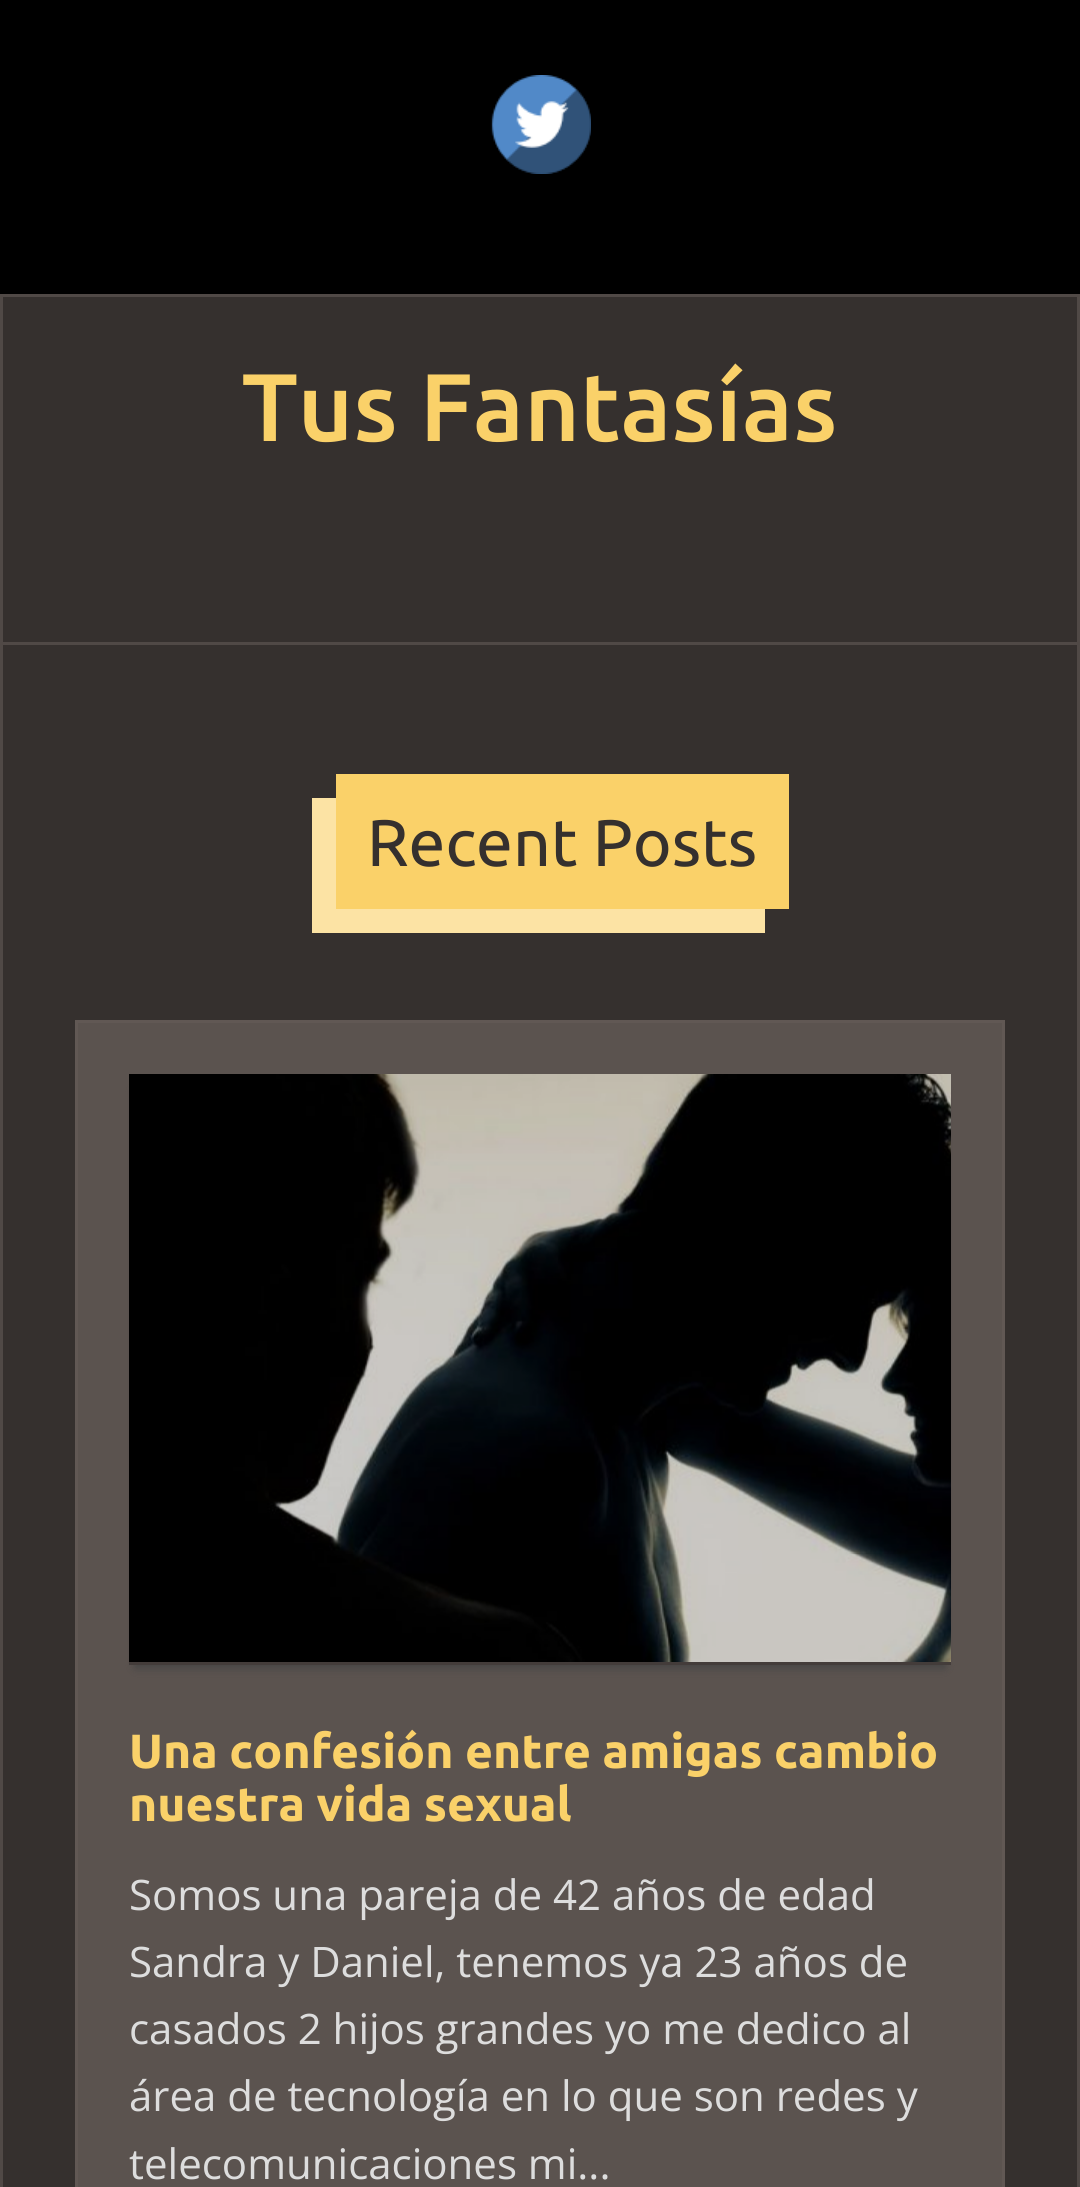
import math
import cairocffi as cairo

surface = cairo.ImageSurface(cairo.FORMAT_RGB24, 1080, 2187)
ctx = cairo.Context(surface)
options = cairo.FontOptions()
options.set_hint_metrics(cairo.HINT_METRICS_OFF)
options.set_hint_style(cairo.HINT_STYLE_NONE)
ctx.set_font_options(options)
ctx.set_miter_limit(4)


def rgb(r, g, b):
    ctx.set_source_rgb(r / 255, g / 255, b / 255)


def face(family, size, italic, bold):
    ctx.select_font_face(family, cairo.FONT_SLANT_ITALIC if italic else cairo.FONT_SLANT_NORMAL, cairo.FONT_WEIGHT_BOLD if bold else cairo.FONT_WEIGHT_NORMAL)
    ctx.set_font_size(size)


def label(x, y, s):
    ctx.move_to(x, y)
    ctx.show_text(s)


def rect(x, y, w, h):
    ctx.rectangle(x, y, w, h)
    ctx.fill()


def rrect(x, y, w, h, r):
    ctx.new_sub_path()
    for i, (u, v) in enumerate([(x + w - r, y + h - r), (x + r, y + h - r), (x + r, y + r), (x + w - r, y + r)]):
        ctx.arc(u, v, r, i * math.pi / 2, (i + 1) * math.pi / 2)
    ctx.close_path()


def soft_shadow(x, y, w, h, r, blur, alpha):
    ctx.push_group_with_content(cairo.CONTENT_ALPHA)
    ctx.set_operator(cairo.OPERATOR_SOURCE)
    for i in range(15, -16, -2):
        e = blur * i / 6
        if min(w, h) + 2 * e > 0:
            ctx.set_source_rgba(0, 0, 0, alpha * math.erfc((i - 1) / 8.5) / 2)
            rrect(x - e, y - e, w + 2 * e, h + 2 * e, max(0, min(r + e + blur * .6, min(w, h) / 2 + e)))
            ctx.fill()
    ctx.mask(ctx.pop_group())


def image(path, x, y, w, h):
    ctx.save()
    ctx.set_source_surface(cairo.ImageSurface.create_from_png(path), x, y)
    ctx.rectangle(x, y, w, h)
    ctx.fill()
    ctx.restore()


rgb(0, 0, 0)
ctx.paint()
image('image0.png', 490, 75, 101, 99)
rgb(53, 48, 46)
ctx.rectangle(1.5, 295.5, 1077, 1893)
ctx.fill_preserve()
rgb(80, 73, 70)
ctx.set_line_width(3)
ctx.stroke()
rect(3, 642, 1074, 3)
face('Ubuntu Medium', 96, 0, 0)
rgb(250, 209, 105)
label(242, 441, 'Tus Fantasías')
rgb(252, 227, 164)
ctx.new_path()
ctx.move_to(312, 798)
ctx.line_to(312, 933)
ctx.line_to(765, 933)
ctx.line_to(765, 909)
ctx.line_to(336, 909)
ctx.line_to(336, 798)
ctx.close_path()
ctx.fill()
rgb(250, 209, 105)
rect(336, 774, 453, 135)
face('Ubuntu', 66, 0, 0)
rgb(53, 48, 46)
label(367, 866, 'Recent Posts')
rgb(91, 83, 79)
ctx.rectangle(76.5, 1021.5, 927, 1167)
ctx.fill_preserve()
rgb(97, 88, 84)
ctx.stroke()
rgb(68, 68, 68)
soft_shadow(135, 1089, 810, 579, 0, 4.5, 1)
rgb(67, 60, 58)
rect(129, 1662, 822, 3)
image('image1.png', 129, 1074, 822, 588)
face('Ubuntu', 48, 0, 1)
rgb(250, 209, 105)
label(129, 1768, 'Una confesión entre amigas cambio')
label(129, 1821, 'nuestra vida sexual')
face('Open Sans', 42, 0, 0)
rgb(221, 221, 221)
label(129, 1910, 'Somos una pareja de 42 años de edad')
label(129, 1977, 'Sandra y Daniel, tenemos ya 23 años de')
label(129, 2044, 'casados 2 hijos grandes yo me dedico al')
label(129, 2111, 'área de tecnología en lo que son redes y')
label(129, 2179, 'telecomunicaciones mi...')
surface.write_to_png('render.png')
